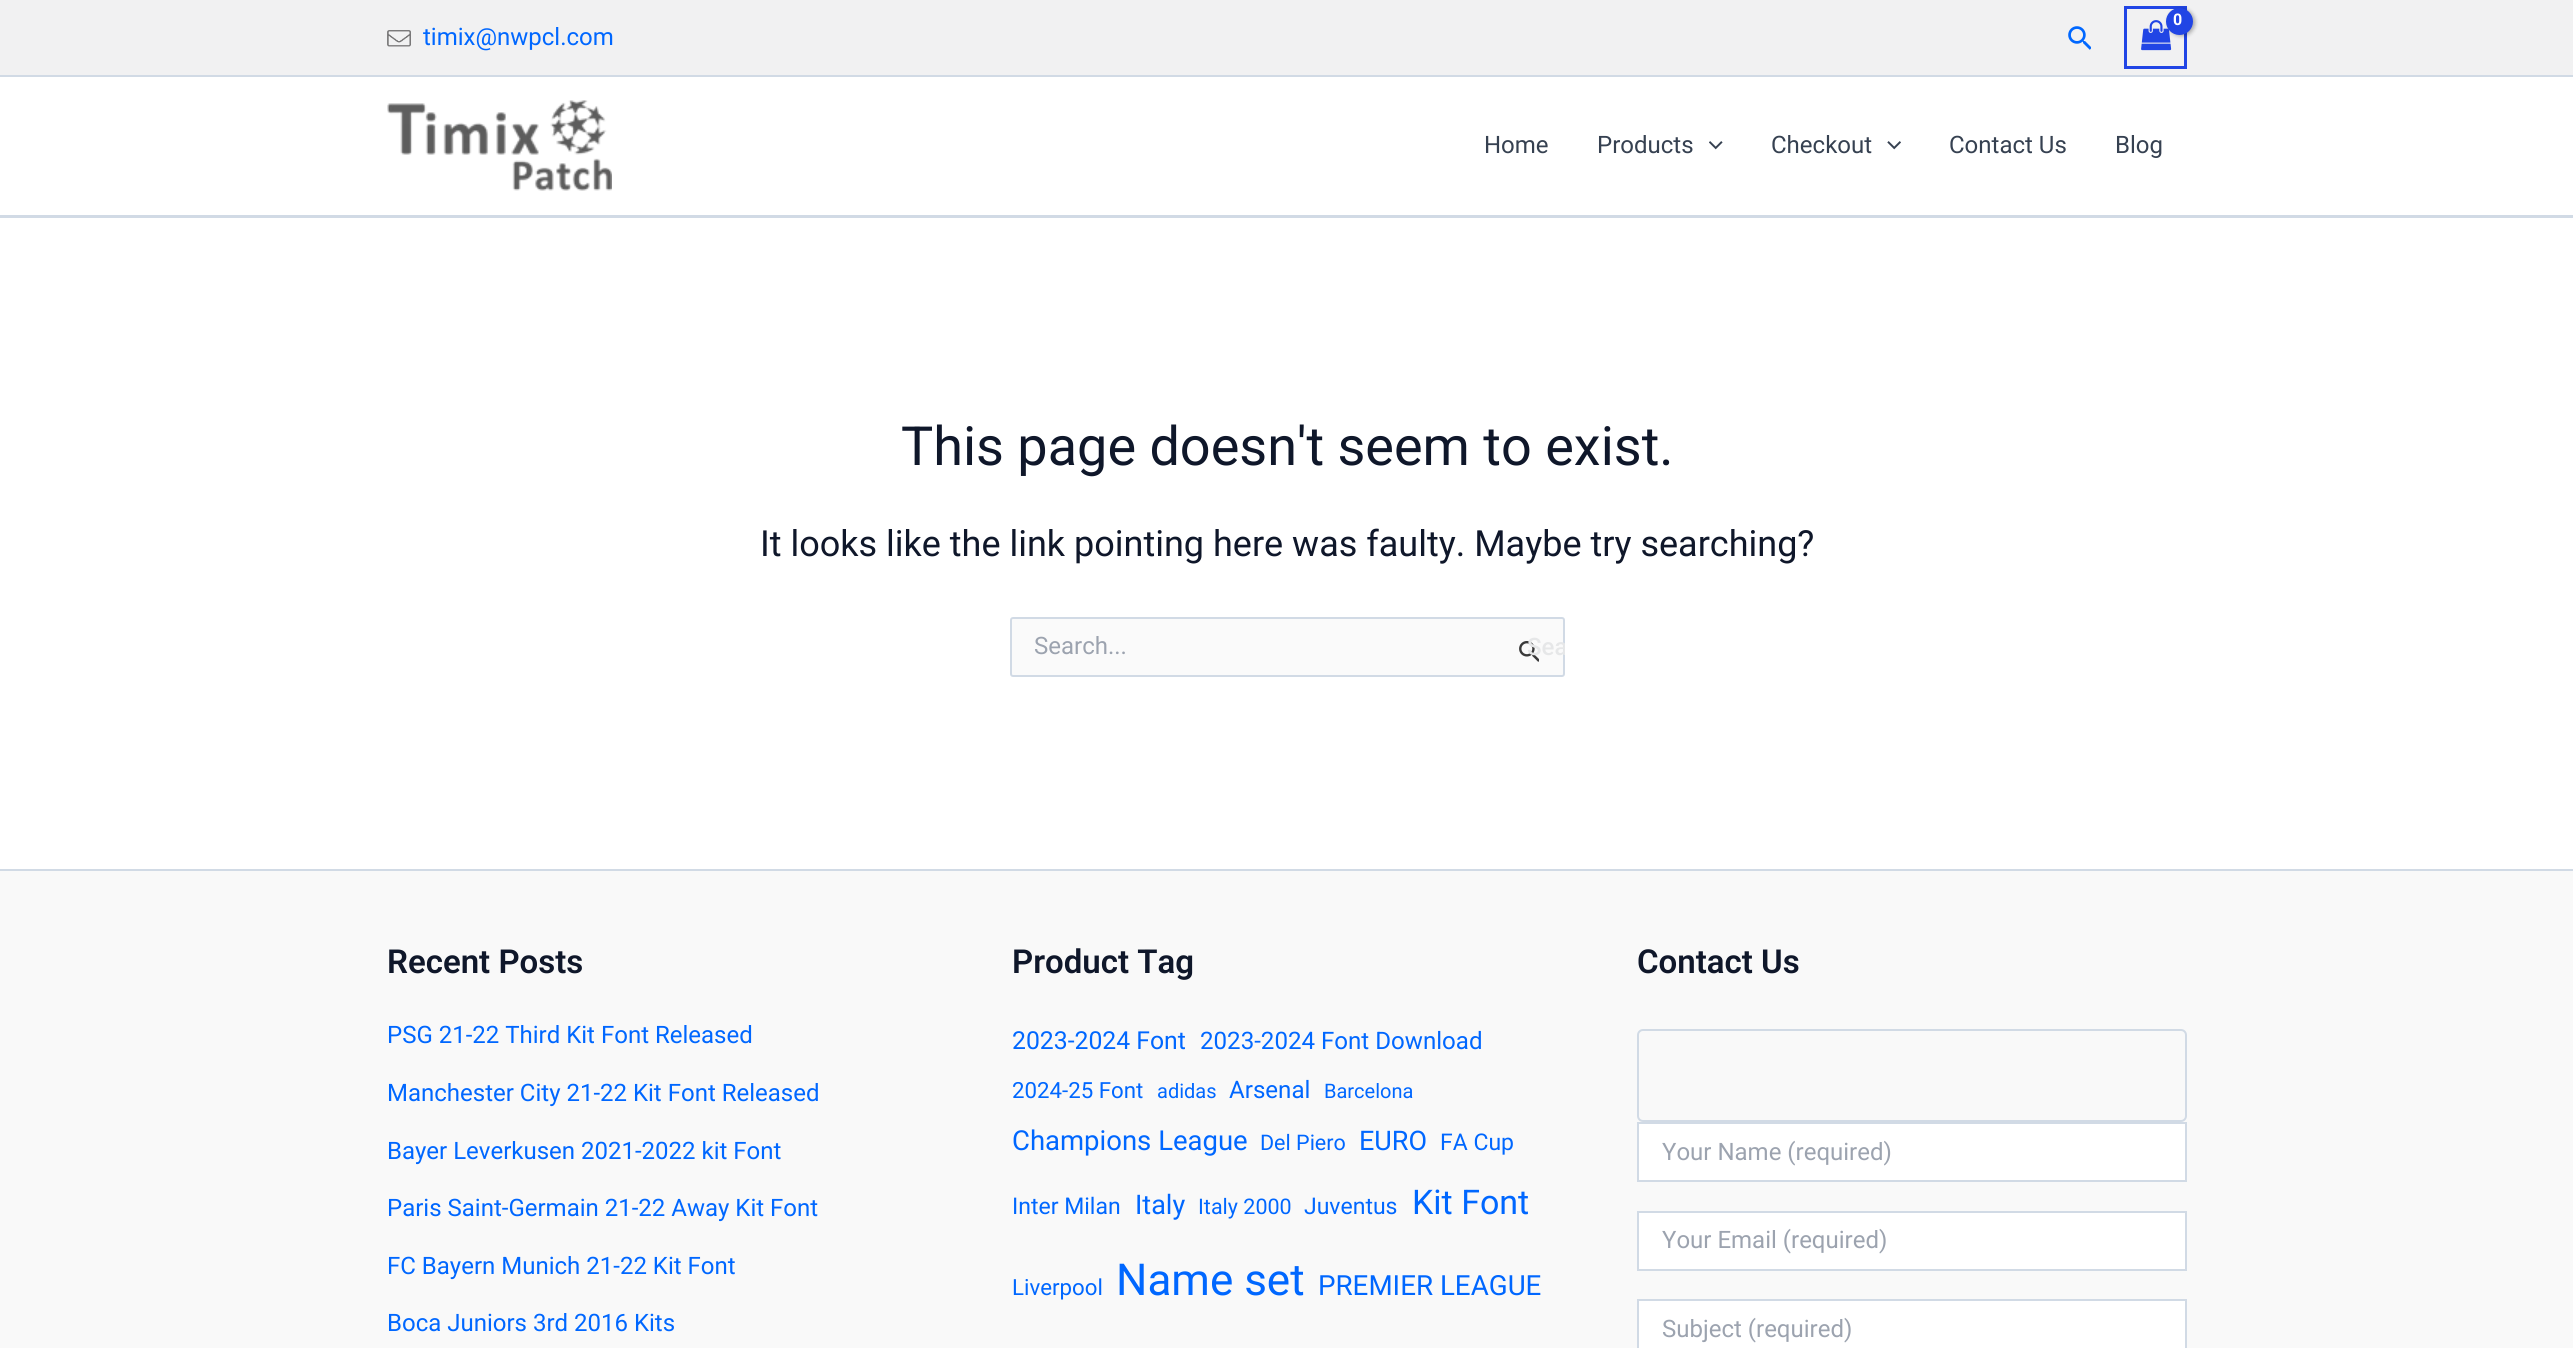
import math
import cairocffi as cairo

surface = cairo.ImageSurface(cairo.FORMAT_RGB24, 2573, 1348)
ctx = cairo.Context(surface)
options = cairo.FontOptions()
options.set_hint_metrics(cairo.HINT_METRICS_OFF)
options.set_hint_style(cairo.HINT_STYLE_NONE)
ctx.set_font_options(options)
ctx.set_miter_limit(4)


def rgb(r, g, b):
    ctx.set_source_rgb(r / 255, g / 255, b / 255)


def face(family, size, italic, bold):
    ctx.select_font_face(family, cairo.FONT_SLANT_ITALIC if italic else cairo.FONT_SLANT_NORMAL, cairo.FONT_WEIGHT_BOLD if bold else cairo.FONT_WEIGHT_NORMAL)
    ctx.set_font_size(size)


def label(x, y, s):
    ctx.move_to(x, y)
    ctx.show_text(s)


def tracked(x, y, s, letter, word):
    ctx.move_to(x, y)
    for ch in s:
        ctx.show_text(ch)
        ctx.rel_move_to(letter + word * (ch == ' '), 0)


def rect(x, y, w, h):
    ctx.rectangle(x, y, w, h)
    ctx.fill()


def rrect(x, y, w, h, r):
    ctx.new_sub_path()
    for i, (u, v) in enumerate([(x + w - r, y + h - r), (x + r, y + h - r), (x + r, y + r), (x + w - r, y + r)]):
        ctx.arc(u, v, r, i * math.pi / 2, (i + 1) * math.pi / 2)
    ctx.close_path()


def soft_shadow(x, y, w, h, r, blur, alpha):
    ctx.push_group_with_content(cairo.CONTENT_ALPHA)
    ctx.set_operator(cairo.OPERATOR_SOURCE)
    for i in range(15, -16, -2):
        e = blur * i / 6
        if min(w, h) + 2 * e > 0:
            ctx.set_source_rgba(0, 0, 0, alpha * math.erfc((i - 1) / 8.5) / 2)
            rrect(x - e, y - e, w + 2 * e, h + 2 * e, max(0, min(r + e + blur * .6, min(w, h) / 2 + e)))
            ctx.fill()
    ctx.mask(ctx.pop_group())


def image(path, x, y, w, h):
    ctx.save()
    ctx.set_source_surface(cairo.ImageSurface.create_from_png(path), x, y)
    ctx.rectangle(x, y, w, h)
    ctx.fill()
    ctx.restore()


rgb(255, 255, 255)
ctx.paint()
rgb(241, 241, 242)
rect(0, 0, 2573, 75)
rgb(209, 218, 229)
rect(0, 75, 2573, 2)
ctx.rectangle(2125.5, 7.5, 60, 60)
rgb(33, 69, 229)
ctx.set_line_width(3)
ctx.stroke()
image('image0.png', 2141, 20, 31, 31)
rgb(0, 0, 0)
soft_shadow(2168, 9, 27, 27, 13.5, 2, 0.3)
rgb(33, 69, 229)
ctx.arc(2179.5, 21.5, 13.5, 0, 2 * math.pi)
ctx.fill()
face('Roboto', 16, 0, 1)
rgb(255, 255, 255)
tracked(2173, 25, '0', -1, 0)
image('image1.png', 2068, 26, 23, 24)
image('image2.png', 387, 30, 24, 17)
face('Roboto', 24, 0, 0)
rgb(0, 103, 255)
label(423, 45, 'timix@nwpcl.com')
rgb(209, 218, 229)
rect(0, 215, 2573, 3)
image('image3.png', 387, 100, 225, 91)
rgb(54, 65, 81)
label(1484, 153, 'Home')
label(1597, 153, 'Products')
image('image4.png', 1709, 141, 14, 9)
label(1771, 153, 'Checkout')
image('image5.png', 1887, 141, 14, 9)
label(1949, 153, 'Contact Us')
label(2115, 153, 'Blog')
face('Roboto', 54, 0, 0)
rgb(15, 23, 42)
label(901, 465, 'This page doesn\'t seem to exist.')
face('Roboto', 36, 0, 0)
label(760, 556, 'It looks like the link pointing here was faulty. Maybe try searching?')
rgb(250, 250, 250)
rrect(1011, 618, 553, 58, 2)
ctx.fill_preserve()
rgb(209, 218, 229)
ctx.set_line_width(2)
ctx.stroke()
face('Roboto', 24, 0, 0)
rgb(156, 163, 175)
label(1034, 654, 'Search...')
image('image6.png', 1519, 641, 20, 21)
ctx.save()
rrect(1497, 617, 68, 63, 3)
ctx.clip()
face('Roboto Medium', 24, 0, 0)
rgb(230, 231, 232)
label(1527, 655, 'Sea')
ctx.restore()
rgb(249, 249, 249)
rect(0, 871, 2573, 477)
rgb(209, 218, 229)
rect(0, 869, 2573, 2)
face('Roboto SemiBold', 33, 0, 0)
rgb(15, 23, 42)
label(387, 973, 'Recent Posts')
face('Roboto', 24, 0, 0)
rgb(0, 103, 255)
label(387, 1043, 'PSG 21-22 Third Kit Font Released')
label(387, 1101, 'Manchester City 21-22 Kit Font Released')
label(387, 1159, 'Bayer Leverkusen 2021-2022 kit Font')
label(387, 1216, 'Paris Saint-Germain 21-22 Away Kit Font')
label(387, 1274, 'FC Bayern Munich 21-22 Kit Font')
label(387, 1331, 'Boca Juniors 3rd 2016 Kits')
face('Roboto SemiBold', 33, 0, 0)
rgb(15, 23, 42)
label(1012, 973, 'Product Tag')
face('Roboto', 24.75, 0, 0)
rgb(0, 103, 255)
label(1012, 1049, '2023-2024 Font')
face('Roboto', 24.1, 0, 0)
label(1200, 1049, '2023-2024 Font Download')
face('Roboto', 22.25, 0, 0)
label(1012, 1098, '2024-25 Font')
face('Roboto', 20, 0, 0)
label(1157, 1098, 'adidas')
face('Roboto', 24.1, 0, 0)
label(1229, 1098, 'Arsenal')
face('Roboto', 20, 0, 0)
label(1324, 1098, 'Barcelona')
face('Roboto', 27.5, 0, 0)
label(1012, 1150, 'Champions League')
face('Roboto', 21.5, 0, 0)
label(1260, 1150, 'Del Piero')
face('Roboto', 27, 0, 0)
label(1359, 1150, 'EURO')
face('Roboto', 23, 0, 0)
label(1440, 1150, 'FA Cup')
label(1012, 1214, 'Inter Milan')
face('Roboto', 27, 0, 0)
label(1135, 1214, 'Italy')
face('Roboto', 21.5, 0, 0)
label(1198, 1214, 'Italy 2000')
face('Roboto', 23, 0, 0)
label(1304, 1214, 'Juventus')
face('Roboto', 34, 0, 0)
label(1412, 1214, 'Kit Font')
face('Roboto', 22.25, 0, 0)
label(1012, 1295, 'Liverpool')
face('Roboto', 44, 0, 0)
label(1116, 1295, 'Name set')
face('Roboto', 27.75, 0, 0)
label(1318, 1295, 'PREMIER LEAGUE')
face('Roboto SemiBold', 33, 0, 0)
rgb(15, 23, 42)
label(1637, 973, 'Contact Us')
rrect(1638, 1030, 548, 91, 5)
rgb(209, 218, 229)
ctx.stroke()
rgb(255, 255, 255)
ctx.rectangle(1638, 1123, 548, 58)
ctx.fill_preserve()
rgb(209, 218, 229)
ctx.stroke()
face('Roboto', 24, 0, 0)
rgb(156, 163, 175)
label(1662, 1160, 'Your Name (required)')
rgb(255, 255, 255)
ctx.rectangle(1638, 1212, 548, 58)
ctx.fill_preserve()
rgb(209, 218, 229)
ctx.stroke()
rgb(156, 163, 175)
label(1662, 1248, 'Your Email (required)')
rgb(255, 255, 255)
ctx.rectangle(1638, 1300, 548, 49)
ctx.fill_preserve()
rgb(209, 218, 229)
ctx.stroke()
rgb(156, 163, 175)
label(1662, 1337, 'Subject (required)')
surface.write_to_png('render.png')
